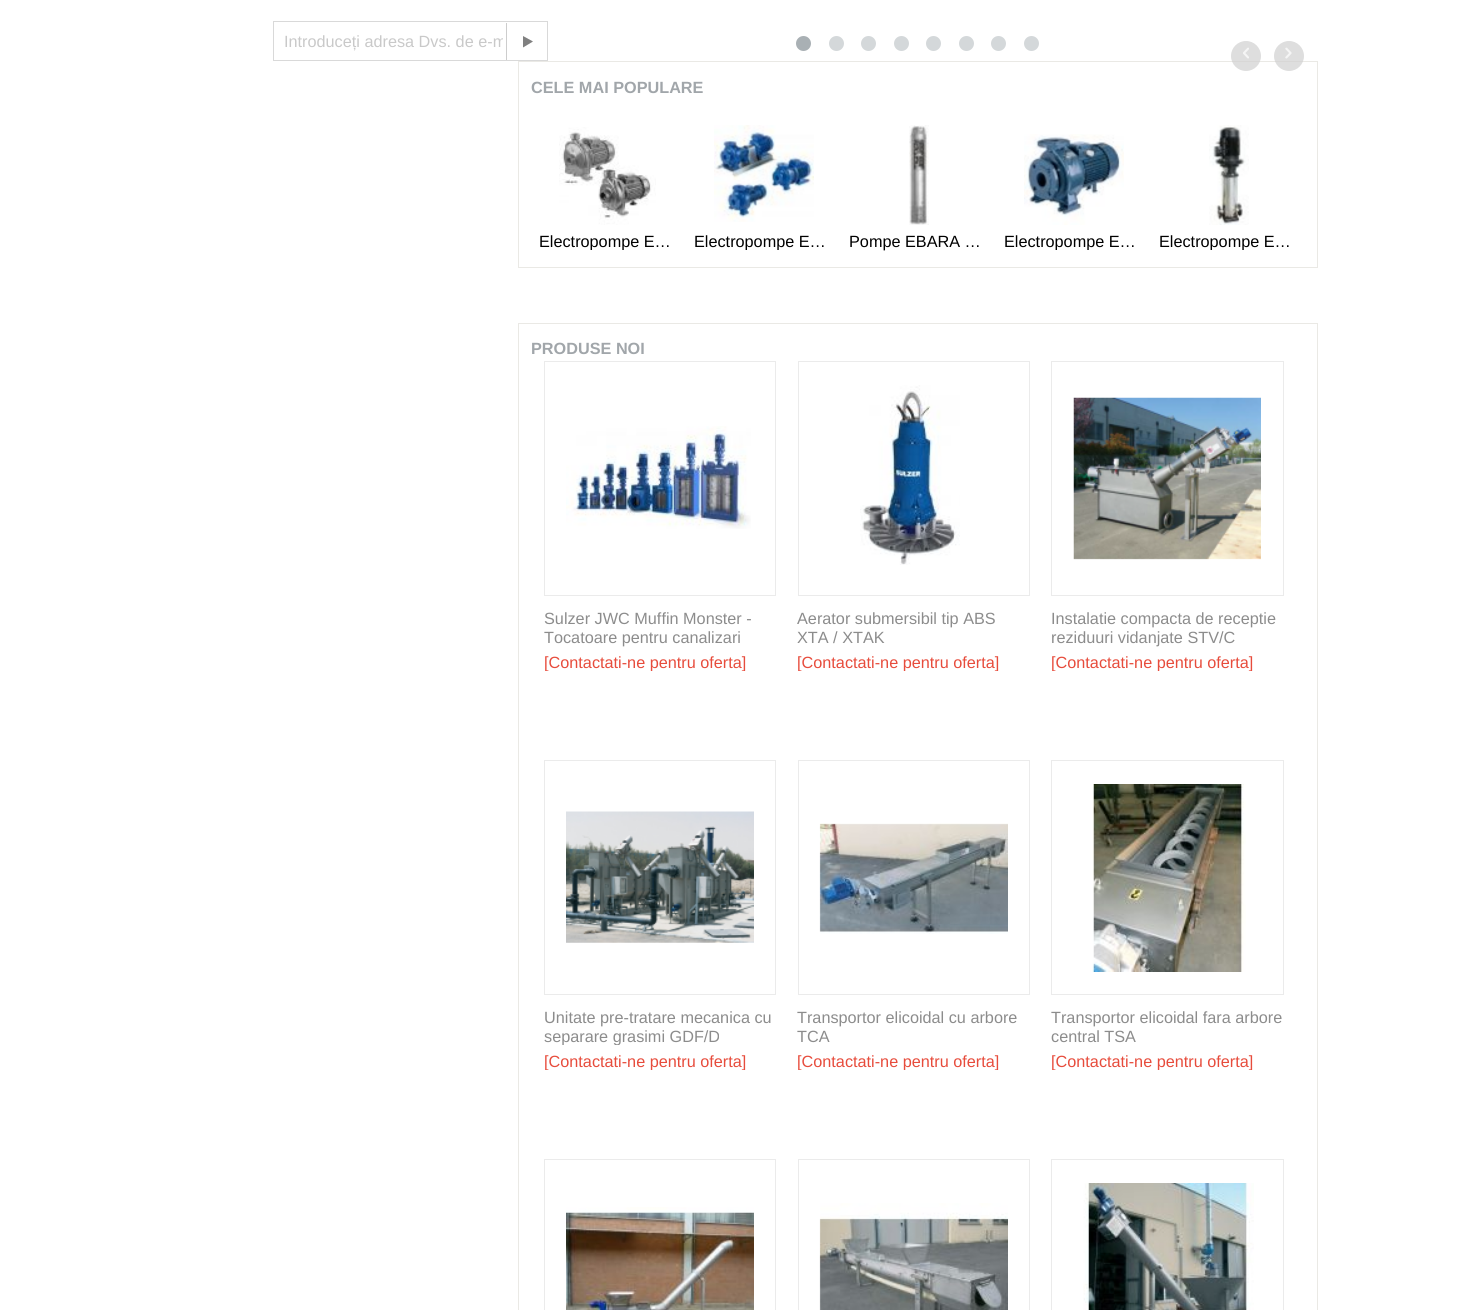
import math
import cairocffi as cairo

surface = cairo.ImageSurface(cairo.FORMAT_RGB24, 1459, 1310)
ctx = cairo.Context(surface)
options = cairo.FontOptions()
options.set_hint_metrics(cairo.HINT_METRICS_OFF)
options.set_hint_style(cairo.HINT_STYLE_NONE)
ctx.set_font_options(options)
ctx.set_miter_limit(4)


def rgb(r, g, b):
    ctx.set_source_rgb(r / 255, g / 255, b / 255)


def face(family, size, italic, bold):
    ctx.select_font_face(family, cairo.FONT_SLANT_ITALIC if italic else cairo.FONT_SLANT_NORMAL, cairo.FONT_WEIGHT_BOLD if bold else cairo.FONT_WEIGHT_NORMAL)
    ctx.set_font_size(size)


def label(x, y, s):
    ctx.move_to(x, y)
    ctx.show_text(s)


def rect(x, y, w, h):
    ctx.rectangle(x, y, w, h)
    ctx.fill()


def image(path, x, y, w, h):
    ctx.save()
    ctx.set_source_surface(cairo.ImageSurface.create_from_png(path), x, y)
    ctx.rectangle(x, y, w, h)
    ctx.fill()
    ctx.restore()


rgb(255, 255, 255)
ctx.paint()
ctx.rectangle(273.5, 21.5, 274, 39)
rgb(217, 217, 217)
ctx.set_line_width(1)
ctx.stroke()
ctx.save()
ctx.rectangle(284, 33, 219, 18)
ctx.clip()
face('Liberation Sans', 16.25, 0, 0)
rgb(201, 201, 201)
label(284, 47, 'Introduceți adresa Dvs. de e-m')
ctx.restore()
rgb(205, 205, 205)
rect(506, 23, 1, 37)
rgb(128, 128, 128)
ctx.new_path()
ctx.move_to(523, 36)
ctx.line_to(533, 41.5)
ctx.line_to(523, 47.5)
ctx.close_path()
ctx.fill()
rgb(169, 176, 180)
ctx.arc(803.5, 43.5, 7.5, 0, 2 * math.pi)
ctx.fill()
rgb(212, 216, 218)
ctx.arc(836.5, 43.5, 7.5, 0, 2 * math.pi)
ctx.fill()
ctx.arc(868.5, 43.5, 7.5, 0, 2 * math.pi)
ctx.fill()
ctx.arc(901.5, 43.5, 7.5, 0, 2 * math.pi)
ctx.fill()
ctx.arc(933.5, 43.5, 7.5, 0, 2 * math.pi)
ctx.fill()
ctx.arc(966.5, 43.5, 7.5, 0, 2 * math.pi)
ctx.fill()
ctx.arc(998.5, 43.5, 7.5, 0, 2 * math.pi)
ctx.fill()
ctx.arc(1031.5, 43.5, 7.5, 0, 2 * math.pi)
ctx.fill()
ctx.rectangle(518.5, 61.5, 799, 206)
rgb(234, 233, 229)
ctx.stroke()
face('Liberation Sans', 16.25, 0, 1)
rgb(161, 166, 170)
label(531, 93, 'CELE MAI POPULARE')
ctx.set_source_rgba(0.82, 0.82, 0.82, 0.7)
ctx.new_path()
ctx.arc(1246, 56, 15, 0, 2 * math.pi)
ctx.fill()
image('image0.png', 1243, 47, 6, 12)
ctx.arc(1289, 56, 15, 0, 2 * math.pi)
ctx.fill()
image('image1.png', 1285, 47, 7, 12)
image('image2.png', 559, 127, 97, 98)
ctx.save()
ctx.rectangle(539, 225, 140, 25)
ctx.clip()
face('Liberation Sans', 16.25, 0, 0)
rgb(0, 0, 0)
label(539, 247, 'Electropompe E…')
ctx.restore()
image('image3.png', 714, 125, 100, 97)
ctx.save()
ctx.rectangle(694, 225, 140, 25)
ctx.clip()
face('Liberation Sans', 16.25, 0, 0)
rgb(0, 0, 0)
label(694, 247, 'Electropompe E…')
ctx.restore()
image('image4.png', 909, 125, 20, 100)
face('Liberation Sans', 16.25, 0, 0)
rgb(0, 0, 0)
label(849, 247, 'Pompe EBARA …')
image('image5.png', 1024, 134, 100, 91)
ctx.save()
ctx.rectangle(1004, 225, 140, 25)
ctx.clip()
label(1004, 247, 'Electropompe E…')
ctx.restore()
image('image6.png', 1209, 125, 40, 100)
ctx.save()
ctx.rectangle(1159, 225, 140, 25)
ctx.clip()
label(1159, 247, 'Electropompe E…')
ctx.restore()
ctx.rectangle(518.5, 323.5, 799, 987)
rgb(234, 233, 229)
ctx.stroke()
face('Liberation Sans', 16.25, 0, 1)
rgb(161, 166, 170)
label(531, 354, 'PRODUSE NOI')
ctx.rectangle(544.5, 361.5, 231, 234)
rgb(235, 235, 235)
ctx.stroke()
image('image7.png', 566, 426, 185, 103)
face('Liberation Sans', 16.25, 0, 0)
rgb(140, 140, 140)
label(544, 624, 'Sulzer JWC Muffin Monster -')
label(544, 643, 'Tocatoare pentru canalizari')
ctx.save()
ctx.rectangle(544, 653, 232, 18)
ctx.clip()
rgb(231, 76, 60)
label(544, 668, '[Contactati-ne pentru oferta]')
ctx.restore()
ctx.rectangle(798.5, 361.5, 231, 234)
rgb(235, 235, 235)
ctx.stroke()
image('image8.png', 860, 385, 100, 180)
rgb(140, 140, 140)
label(797, 624, 'Aerator submersibil tip ABS')
label(797, 643, 'XTA / XTAK')
ctx.save()
ctx.rectangle(798, 653, 232, 18)
ctx.clip()
rgb(231, 76, 60)
label(797, 668, '[Contactati-ne pentru oferta]')
ctx.restore()
ctx.rectangle(1051.5, 361.5, 232, 234)
rgb(235, 235, 235)
ctx.stroke()
image('image9.png', 1073, 397, 188, 163)
rgb(140, 140, 140)
label(1051, 624, 'Instalatie compacta de receptie')
label(1051, 643, 'reziduuri vidanjate STV/C')
ctx.save()
ctx.rectangle(1051, 653, 233, 18)
ctx.clip()
rgb(231, 76, 60)
label(1051, 668, '[Contactati-ne pentru oferta]')
ctx.restore()
ctx.rectangle(544.5, 760.5, 231, 234)
rgb(235, 235, 235)
ctx.stroke()
image('image10.png', 566, 811, 188, 132)
rgb(140, 140, 140)
label(544, 1023, 'Unitate pre-tratare mecanica cu')
ctx.save()
ctx.rectangle(544, 1008, 232, 37)
ctx.clip()
label(544, 1042, 'separare grasimi GDF/D')
ctx.restore()
ctx.save()
ctx.rectangle(544, 1051, 232, 19)
ctx.clip()
rgb(231, 76, 60)
label(544, 1067, '[Contactati-ne pentru oferta]')
ctx.restore()
ctx.rectangle(798.5, 760.5, 231, 234)
rgb(235, 235, 235)
ctx.stroke()
image('image11.png', 819, 823, 189, 111)
rgb(140, 140, 140)
label(797, 1023, 'Transportor elicoidal cu arbore')
label(797, 1042, 'TCA')
ctx.save()
ctx.rectangle(798, 1051, 232, 19)
ctx.clip()
rgb(231, 76, 60)
label(797, 1067, '[Contactati-ne pentru oferta]')
ctx.restore()
ctx.rectangle(1051.5, 760.5, 232, 234)
rgb(235, 235, 235)
ctx.stroke()
image('image12.png', 1092, 784, 154, 188)
rgb(140, 140, 140)
label(1051, 1023, 'Transportor elicoidal fara arbore')
label(1051, 1042, 'central TSA')
ctx.save()
ctx.rectangle(1051, 1051, 233, 19)
ctx.clip()
rgb(231, 76, 60)
label(1051, 1067, '[Contactati-ne pentru oferta]')
ctx.restore()
ctx.rectangle(544.5, 1159.5, 231, 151)
rgb(235, 235, 235)
ctx.stroke()
image('image13.png', 566, 1207, 188, 103)
ctx.rectangle(798.5, 1159.5, 231, 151)
ctx.stroke()
image('image14.png', 819, 1203, 189, 107)
ctx.rectangle(1051.5, 1159.5, 232, 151)
ctx.stroke()
image('image15.png', 1083, 1183, 171, 127)
surface.write_to_png('render.png')
